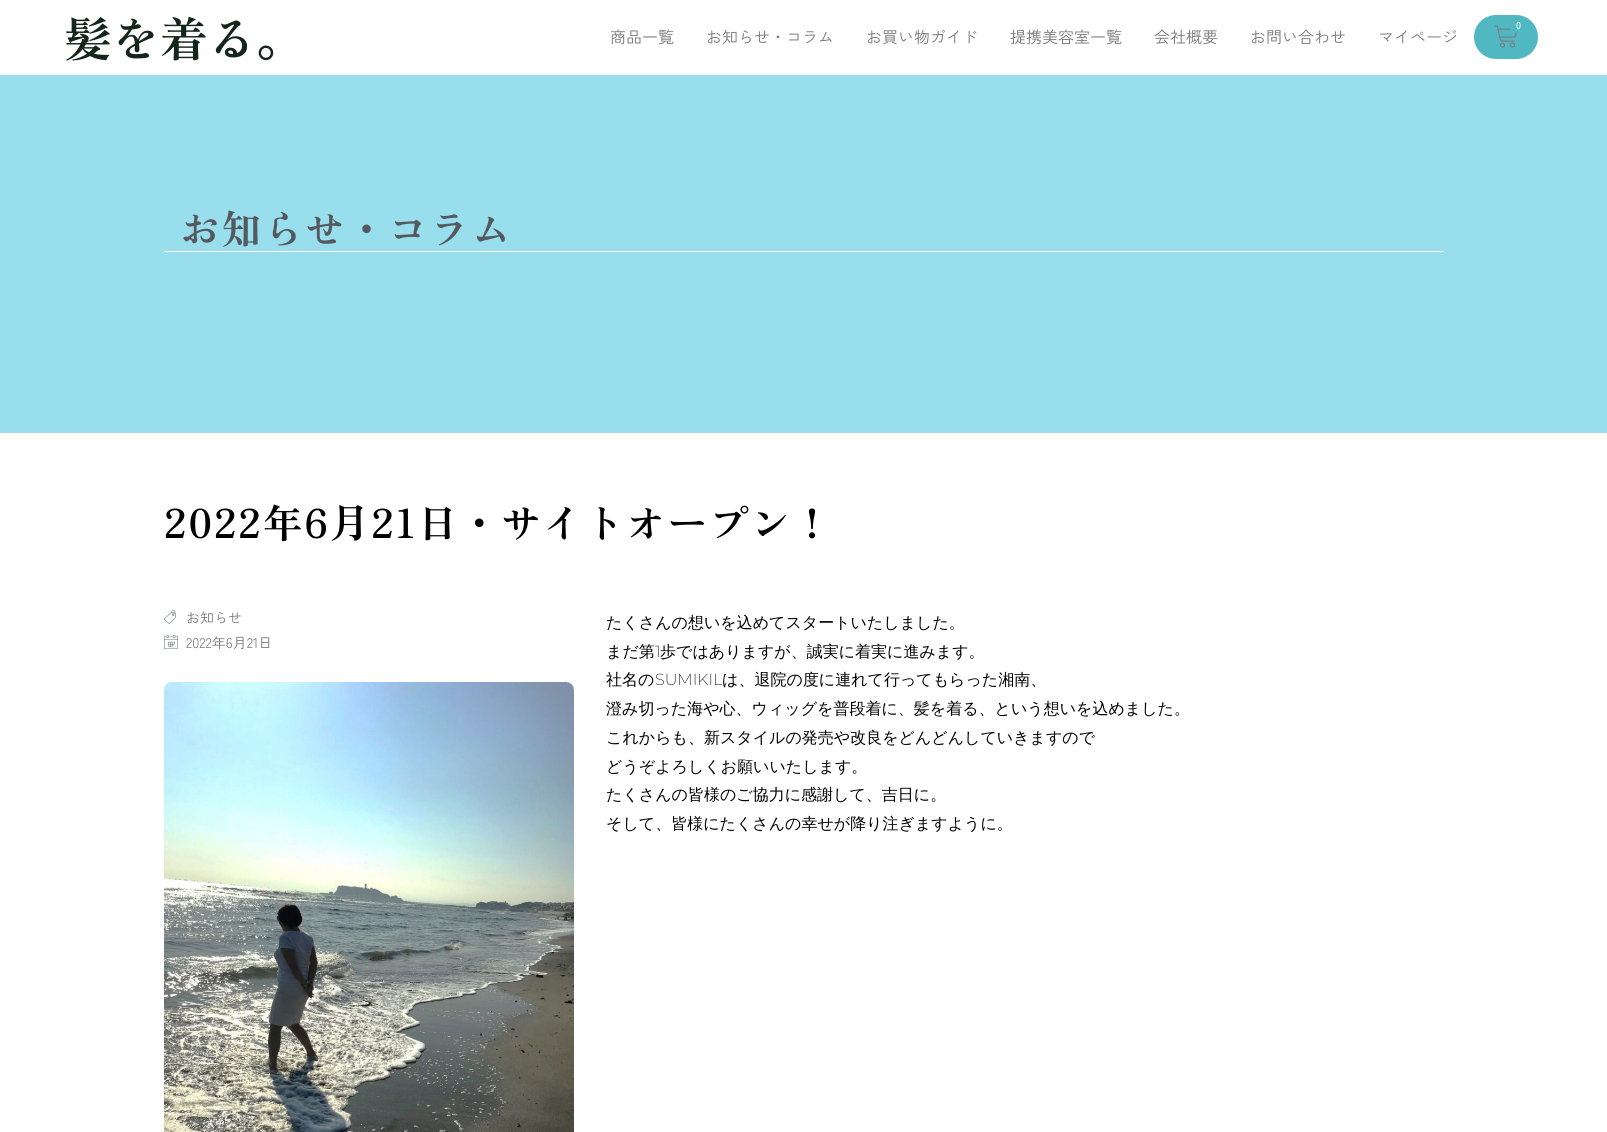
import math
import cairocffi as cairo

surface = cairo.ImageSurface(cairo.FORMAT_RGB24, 1607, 1132)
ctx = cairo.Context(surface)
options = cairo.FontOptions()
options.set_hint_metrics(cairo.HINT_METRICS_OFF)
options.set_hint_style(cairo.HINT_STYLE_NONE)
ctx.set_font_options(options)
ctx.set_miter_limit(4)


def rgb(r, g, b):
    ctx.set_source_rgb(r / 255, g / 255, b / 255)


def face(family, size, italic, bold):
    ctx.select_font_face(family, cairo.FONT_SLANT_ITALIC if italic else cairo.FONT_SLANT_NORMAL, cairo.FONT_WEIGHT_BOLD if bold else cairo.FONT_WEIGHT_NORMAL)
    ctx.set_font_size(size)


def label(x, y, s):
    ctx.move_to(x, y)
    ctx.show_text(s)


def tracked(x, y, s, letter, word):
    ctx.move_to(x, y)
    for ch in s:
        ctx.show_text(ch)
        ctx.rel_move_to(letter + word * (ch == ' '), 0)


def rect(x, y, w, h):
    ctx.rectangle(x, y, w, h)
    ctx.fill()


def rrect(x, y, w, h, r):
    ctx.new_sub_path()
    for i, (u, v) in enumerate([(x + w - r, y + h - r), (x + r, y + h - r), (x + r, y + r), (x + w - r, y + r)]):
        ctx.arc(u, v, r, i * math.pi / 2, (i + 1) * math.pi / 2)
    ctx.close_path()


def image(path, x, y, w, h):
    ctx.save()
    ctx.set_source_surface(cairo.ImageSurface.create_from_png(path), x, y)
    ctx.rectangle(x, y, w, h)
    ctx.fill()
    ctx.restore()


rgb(255, 255, 255)
ctx.paint()
rgb(244, 246, 244)
rect(0, 74, 1607, 1)
face('Zen Old Mincho', 48, 0, 1)
rgb(20, 38, 28)
label(64, 57, '髪を着る。')
rgb(81, 184, 194)
rrect(1474, 15, 64, 44, 22)
ctx.fill()
image('image0.png', 1494, 25, 23, 23)
ctx.arc(1518, 25, 8, 0, 2 * math.pi)
ctx.fill()
face('Zen Kaku Gothic New Medium', 10, 0, 0)
rgb(255, 255, 255)
label(1516, 29, '0')
face('Zen Kaku Gothic New', 16, 0, 0)
rgb(122, 122, 122)
label(610, 43, '商品一覧')
label(706, 43, 'お知らせ・コラム')
label(866, 43, 'お買い物ガイド')
label(1010, 43, '提携美容室一覧')
label(1154, 43, '会社概要')
label(1250, 43, 'お問い合わせ')
label(1378, 43, 'マイページ')
rgb(152, 222, 236)
rect(0, 75, 1607, 358)
rgb(255, 255, 255)
rect(164, 251, 1280, 1)
face('Zen Old Mincho', 40, 0, 1)
rgb(84, 89, 95)
tracked(180, 244, 'お知らせ・コラム', 1.6, 0)
rgb(0, 0, 0)
tracked(164, 538, '2022年6月21日・サイトオープン！', 1.6, 0)
image('image1.png', 164, 609, 12, 15)
face('Zen Kaku Gothic New', 14, 0, 0)
rgb(122, 122, 122)
label(186, 623, 'お知らせ')
image('image2.png', 164, 634, 14, 15)
label(186, 648, '2022年6月21日')
image('image3.png', 164, 682, 410, 450)
face('WenQuanYi Zen Hei Medium', 16, 0, 0)
rgb(0, 0, 0)
label(606, 628, 'たくさんの想いを込めてスタートいたしました。')
label(606, 657, 'まだ第')
face('Montserrat ExtraLight', 16, 0, 0)
label(655, 657, '1')
face('WenQuanYi Zen Hei Medium', 16, 0, 0)
label(660, 657, '歩ではありますが、誠実に着実に進みます。')
label(606, 685, '社名の')
face('Montserrat ExtraLight', 16, 0, 0)
label(655, 685, 'SUMIKIL')
face('WenQuanYi Zen Hei Medium', 16, 0, 0)
label(722, 685, 'は、退院の度に連れて行ってもらった湘南、')
label(606, 714, '澄み切った海や心、ウィッグを普段着に、髪を着る、という想いを込めました。')
label(606, 743, 'これからも、新スタイルの発売や改良をどんどんしていきますので')
label(606, 772, 'どうぞよろしくお願いいたします。')
label(606, 800, 'たくさんの皆様のご協力に感謝して、吉日に。')
label(606, 829, 'そして、皆様にたくさんの幸せが降り注ぎますように。')
surface.write_to_png('render.png')
